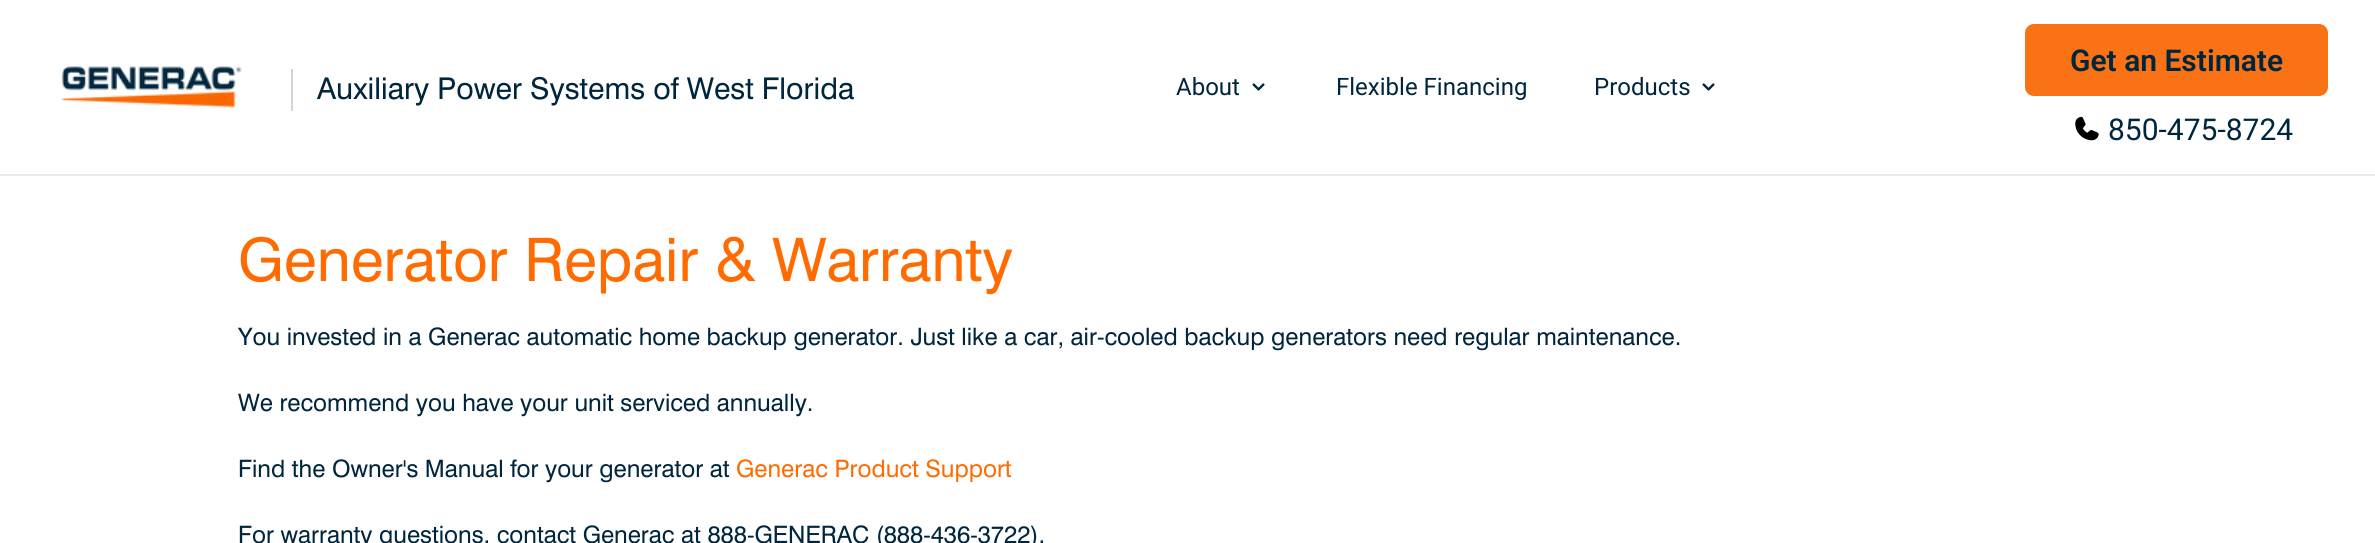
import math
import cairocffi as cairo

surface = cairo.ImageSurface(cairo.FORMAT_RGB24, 2375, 543)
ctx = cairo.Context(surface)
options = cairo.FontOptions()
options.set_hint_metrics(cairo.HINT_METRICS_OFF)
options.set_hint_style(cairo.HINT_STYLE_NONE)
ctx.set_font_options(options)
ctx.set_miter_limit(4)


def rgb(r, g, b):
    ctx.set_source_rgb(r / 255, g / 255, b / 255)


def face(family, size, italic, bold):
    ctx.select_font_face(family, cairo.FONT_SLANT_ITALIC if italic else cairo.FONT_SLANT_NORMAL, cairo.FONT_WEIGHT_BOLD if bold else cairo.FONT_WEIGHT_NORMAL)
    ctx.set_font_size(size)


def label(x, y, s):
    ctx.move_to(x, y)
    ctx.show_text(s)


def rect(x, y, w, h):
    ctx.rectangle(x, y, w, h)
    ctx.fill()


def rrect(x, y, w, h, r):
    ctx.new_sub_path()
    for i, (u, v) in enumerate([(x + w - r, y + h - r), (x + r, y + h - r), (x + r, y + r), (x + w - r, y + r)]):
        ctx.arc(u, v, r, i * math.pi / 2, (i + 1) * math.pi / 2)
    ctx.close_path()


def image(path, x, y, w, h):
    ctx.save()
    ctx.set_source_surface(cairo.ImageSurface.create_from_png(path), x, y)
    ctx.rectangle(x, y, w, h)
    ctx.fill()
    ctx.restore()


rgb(255, 255, 255)
ctx.paint()
rgb(234, 234, 234)
rect(0, 174, 2375, 2)
image('image0.png', 61, 66, 181, 42)
rgb(212, 212, 212)
rect(291, 69, 2, 42)
face('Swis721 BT', 30, 0, 0)
rgb(0, 38, 62)
label(317, 99, 'Auxiliary Power Systems of West Florida')
face('Roboto', 24, 0, 0)
label(1176, 95, 'About')
image('image1.png', 1252, 83, 13, 8)
label(1336, 95, 'Flexible Financing')
label(1594, 95, 'Products')
image('image1.png', 1702, 83, 13, 8)
rgb(249, 115, 22)
rrect(2026.5, 25.5, 300, 69, 7.5)
ctx.fill_preserve()
ctx.set_line_width(3)
ctx.stroke()
face('Roboto SemiBold', 30, 0, 0)
rgb(0, 38, 62)
label(2070, 71, 'Get an Estimate')
image('image2.png', 2075, 116, 24, 25)
face('Roboto', 30, 0, 0)
label(2108, 140, '850-475-8724')
face('Swis721 BT', 60, 0, 0)
rgb(255, 107, 0)
label(238, 281, 'Generator Repair & Warranty')
face('Swis721 BT', 24, 0, 0)
rgb(0, 38, 62)
label(238, 345, 'You invested in a Generac automatic home backup generator. Just like a car, air-cooled backup generators need regular maintenance.')
label(238, 411, 'We recommend you have your unit serviced annually.')
label(238, 477, 'Find the Owner\'s Manual for your generator at')
rgb(255, 107, 0)
label(736, 477, 'Generac Product Support')
rgb(0, 38, 62)
label(238, 543, 'For warranty questions, contact Generac at 888-GENERAC (888-436-3722).')
surface.write_to_png('render.png')
